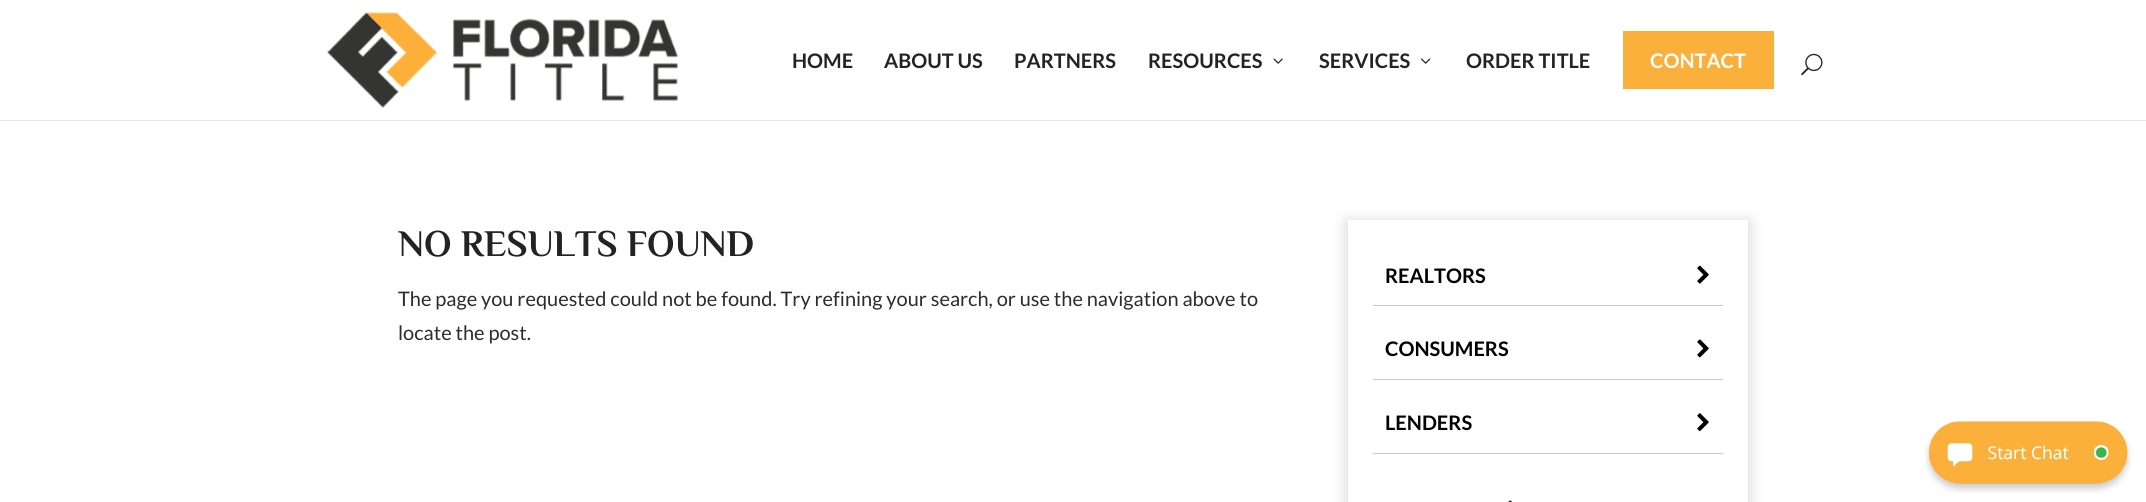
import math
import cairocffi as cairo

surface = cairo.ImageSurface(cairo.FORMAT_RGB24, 2146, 502)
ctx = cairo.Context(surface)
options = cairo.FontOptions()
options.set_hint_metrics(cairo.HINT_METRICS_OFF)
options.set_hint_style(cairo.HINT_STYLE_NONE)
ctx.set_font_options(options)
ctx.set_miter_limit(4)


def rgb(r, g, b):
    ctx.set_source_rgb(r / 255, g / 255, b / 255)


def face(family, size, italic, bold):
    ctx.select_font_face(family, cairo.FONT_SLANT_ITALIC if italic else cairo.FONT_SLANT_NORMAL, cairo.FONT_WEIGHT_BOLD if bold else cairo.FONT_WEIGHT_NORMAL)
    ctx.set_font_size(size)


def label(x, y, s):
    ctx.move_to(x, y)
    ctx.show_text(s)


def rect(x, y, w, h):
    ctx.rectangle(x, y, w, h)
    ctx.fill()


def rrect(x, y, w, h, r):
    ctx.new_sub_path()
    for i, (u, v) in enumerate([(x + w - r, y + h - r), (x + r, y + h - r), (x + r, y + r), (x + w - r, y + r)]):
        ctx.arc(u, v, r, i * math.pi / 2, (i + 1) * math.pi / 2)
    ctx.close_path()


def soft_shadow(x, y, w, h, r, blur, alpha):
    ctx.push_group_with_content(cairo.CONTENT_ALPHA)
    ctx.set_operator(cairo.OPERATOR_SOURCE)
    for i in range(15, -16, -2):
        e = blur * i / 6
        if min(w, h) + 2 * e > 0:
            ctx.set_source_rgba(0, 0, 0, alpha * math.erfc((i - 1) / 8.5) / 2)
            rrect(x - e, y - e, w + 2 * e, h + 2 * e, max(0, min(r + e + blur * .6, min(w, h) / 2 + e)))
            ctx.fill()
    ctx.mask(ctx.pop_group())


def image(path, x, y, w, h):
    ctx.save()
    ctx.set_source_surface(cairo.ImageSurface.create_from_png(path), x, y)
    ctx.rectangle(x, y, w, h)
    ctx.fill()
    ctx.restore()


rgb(255, 255, 255)
ctx.paint()
rgb(230, 230, 230)
rect(0, 120, 2146, 1)
image('image0.png', 327, 12, 352, 96)
face('Lato', 20, 0, 1)
rgb(35, 35, 35)
label(792, 68, 'HOME')
label(884, 68, 'ABOUT US')
label(1014, 68, 'PARTNERS')
label(1148, 68, 'RESOURCES')
image('image1.png', 1273, 58, 10, 6)
label(1319, 68, 'SERVICES')
image('image2.png', 1421, 58, 10, 6)
label(1466, 68, 'ORDER TITLE')
rgb(251, 176, 59)
rect(1623, 31, 151, 58)
rgb(255, 255, 255)
label(1650, 68, 'CONTACT')
image('image3.png', 1801, 53, 22, 23)
face('Philosopher', 37.5, 0, 1)
rgb(35, 35, 35)
label(398, 256, 'NO RESULTS FOUND')
face('Lato', 20, 0, 0)
rgb(44, 44, 44)
label(398, 306, 'The page you requested could not be found. Try refining your search, or use the navigation above to')
label(398, 340, 'locate the post.')
rgb(0, 0, 0)
soft_shadow(1348, 223, 400, 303, 0, 8, 0.2)
rgb(255, 255, 255)
rect(1348, 220, 400, 282)
rgb(201, 201, 201)
rect(1373, 305, 350, 1)
face('Lato', 20, 0, 1)
rgb(0, 0, 0)
label(1385, 283, 'REALTORS')
image('image4.png', 1697, 265, 12, 19)
rgb(201, 201, 201)
rect(1373, 379, 350, 1)
rgb(0, 0, 0)
label(1385, 356, 'CONSUMERS')
image('image5.png', 1697, 339, 12, 19)
rgb(201, 201, 201)
rect(1373, 453, 350, 1)
rgb(0, 0, 0)
label(1385, 430, 'LENDERS')
image('image6.png', 1697, 413, 12, 19)
image('image7.png', 1508, 500, 4, 2)
image('image8.png', 1925, 421, 206, 72)
surface.write_to_png('render.png')
